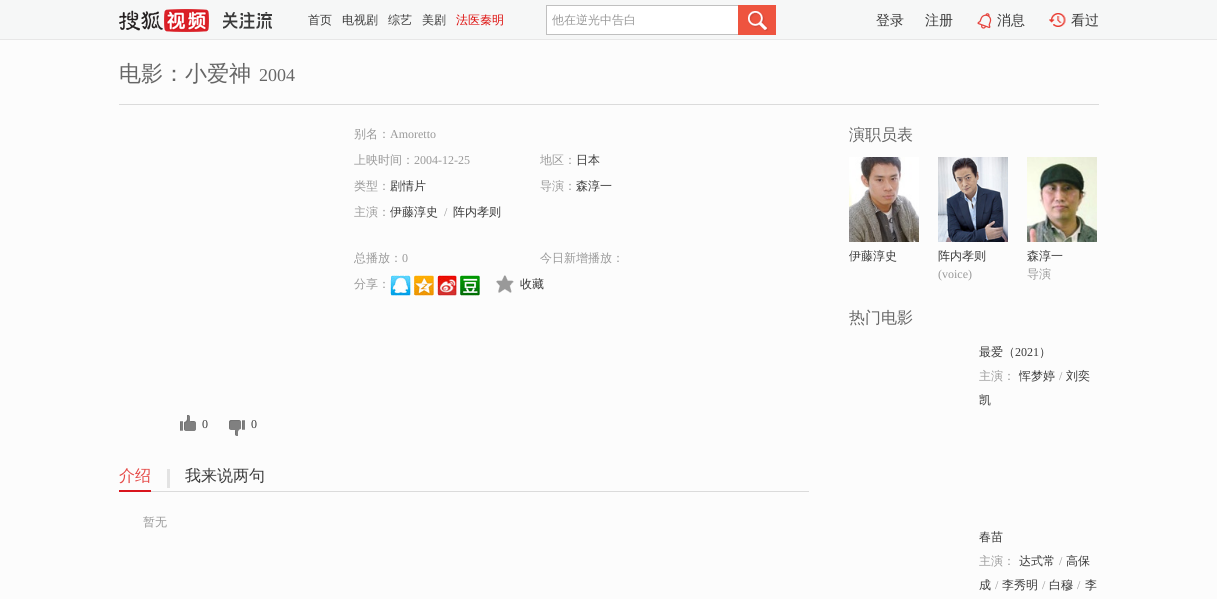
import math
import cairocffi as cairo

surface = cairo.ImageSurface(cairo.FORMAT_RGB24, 1217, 599)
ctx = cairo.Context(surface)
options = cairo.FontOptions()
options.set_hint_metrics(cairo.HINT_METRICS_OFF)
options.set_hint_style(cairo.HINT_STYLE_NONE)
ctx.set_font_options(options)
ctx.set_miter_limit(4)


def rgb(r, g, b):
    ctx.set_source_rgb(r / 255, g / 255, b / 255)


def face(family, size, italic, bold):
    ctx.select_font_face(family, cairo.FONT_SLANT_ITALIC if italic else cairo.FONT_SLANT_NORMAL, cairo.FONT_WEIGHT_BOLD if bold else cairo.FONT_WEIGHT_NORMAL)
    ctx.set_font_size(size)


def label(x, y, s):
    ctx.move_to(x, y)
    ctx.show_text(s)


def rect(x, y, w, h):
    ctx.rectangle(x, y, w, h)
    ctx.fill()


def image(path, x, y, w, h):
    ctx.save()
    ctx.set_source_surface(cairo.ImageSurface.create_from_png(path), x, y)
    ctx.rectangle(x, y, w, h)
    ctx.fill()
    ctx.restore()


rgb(252, 252, 252)
ctx.paint()
rgb(246, 247, 247)
rect(0, 0, 1217, 39)
rgb(231, 231, 231)
rect(0, 39, 1217, 1)
image('image0.png', 119, 9, 90, 23)
image('image1.png', 223, 12, 49, 17)
face('WenQuanYi Zen Hei Medium', 12, 0, 0)
rgb(58, 58, 58)
label(308, 24, '首页')
label(342, 24, '电视剧')
label(388, 24, '综艺')
label(422, 24, '美剧')
rgb(221, 13, 11)
label(456, 24, '法医秦明')
rgb(255, 255, 255)
rect(547, 6, 191, 28)
rgb(192, 192, 192)
rect(546, 5, 192, 1)
rect(546, 34, 192, 1)
rect(546, 5, 1, 30)
rgb(153, 153, 153)
label(552, 24, '他在逆光中告白')
image('image2.png', 738, 5, 38, 30)
face('WenQuanYi Zen Hei Medium', 14, 0, 0)
rgb(58, 58, 58)
label(876, 25, '登录')
label(925, 25, '注册')
image('image3.png', 977, 13, 15, 16)
label(997, 25, '消息')
image('image4.png', 1049, 13, 18, 14)
label(1071, 25, '看过')
rgb(219, 219, 219)
rect(119, 104, 980, 1)
face('WenQuanYi Zen Hei Medium', 22, 0, 0)
rgb(102, 102, 102)
label(119, 81, '电影：小爱神')
face('Liberation Serif', 18, 0, 0)
label(259, 81, '2004')
face('WenQuanYi Zen Hei Medium', 12, 0, 0)
rgb(153, 153, 153)
label(354, 138, '别名：')
face('Liberation Serif', 12, 0, 0)
label(390, 138, 'Amoretto')
face('WenQuanYi Zen Hei Medium', 12, 0, 0)
label(354, 164, '上映时间：')
face('Liberation Serif', 12, 0, 0)
label(414, 164, '2004-12-25')
ctx.save()
ctx.rectangle(540, 151, 186, 18)
ctx.clip()
face('WenQuanYi Zen Hei Medium', 12, 0, 0)
label(540, 164, '地区：')
ctx.restore()
face('WenQuanYi Zen Hei Medium', 12, 0, 0)
rgb(58, 58, 58)
label(576, 164, '日本')
rgb(153, 153, 153)
label(354, 190, '类型：')
rgb(58, 58, 58)
label(390, 190, '剧情片')
rgb(153, 153, 153)
label(540, 190, '导演：')
rgb(58, 58, 58)
label(576, 190, '森淳一')
rgb(153, 153, 153)
label(354, 216, '主演：')
rgb(58, 58, 58)
label(390, 216, '伊藤淳史')
face('Liberation Serif', 12, 0, 0)
rgb(153, 153, 153)
label(444, 216, '/')
face('WenQuanYi Zen Hei Medium', 12, 0, 0)
rgb(58, 58, 58)
label(453, 216, '阵内孝则')
rgb(153, 153, 153)
label(354, 262, '总播放：')
face('Liberation Serif', 12, 0, 0)
label(402, 262, '0')
face('WenQuanYi Zen Hei Medium', 12, 0, 0)
label(540, 262, '今日新增播放：')
label(354, 288, '分享：')
image('image5.png', 390, 275, 21, 21)
image('image6.png', 414, 275, 20, 21)
image('image7.png', 437, 275, 20, 21)
image('image8.png', 460, 275, 20, 21)
image('image9.png', 496, 275, 18, 18)
rgb(58, 58, 58)
label(520, 288, '收藏')
image('image10.png', 180, 415, 16, 16)
face('Liberation Serif', 12, 0, 0)
label(202, 428, '0')
image('image11.png', 229, 420, 16, 16)
label(251, 428, '0')
rgb(219, 219, 219)
rect(151, 491, 658, 1)
rgb(217, 21, 29)
rect(119, 490, 32, 2)
face('WenQuanYi Zen Hei Medium', 16, 0, 0)
rgb(229, 73, 71)
label(119, 481, '介绍')
rgb(227, 227, 227)
rect(167, 469, 3, 19)
rgb(58, 58, 58)
label(185, 481, '我来说两句')
face('WenQuanYi Zen Hei Medium', 12, 0, 0)
rgb(153, 153, 153)
label(143, 526, '暂无')
face('WenQuanYi Zen Hei Medium', 16, 0, 0)
rgb(102, 102, 102)
label(849, 140, '演职员表')
image('image12.png', 849, 157, 70, 85)
face('WenQuanYi Zen Hei Medium', 12, 0, 0)
rgb(58, 58, 58)
label(849, 260, '伊藤淳史')
image('image13.png', 938, 157, 70, 85)
label(938, 260, '阵内孝则')
face('Liberation Serif', 12, 0, 0)
rgb(153, 153, 153)
label(938, 278, '(voice)')
image('image14.png', 1027, 157, 70, 85)
face('WenQuanYi Zen Hei Medium', 12, 0, 0)
rgb(58, 58, 58)
label(1027, 260, '森淳一')
rgb(153, 153, 153)
label(1027, 278, '导演')
face('WenQuanYi Zen Hei Medium', 16, 0, 0)
rgb(102, 102, 102)
label(849, 323, '热门电影')
face('WenQuanYi Zen Hei Medium', 12, 0, 0)
rgb(58, 58, 58)
label(979, 356, '最爱（')
face('Liberation Serif', 12, 0, 0)
label(1015, 356, '2021')
face('WenQuanYi Zen Hei Medium', 12, 0, 0)
label(1039, 356, '）')
rgb(153, 153, 153)
label(979, 380, '主演：')
rgb(58, 58, 58)
label(1019, 380, '恽梦婷')
face('Liberation Serif', 12, 0, 0)
rgb(153, 153, 153)
label(1059, 380, '/')
face('WenQuanYi Zen Hei Medium', 12, 0, 0)
rgb(58, 58, 58)
label(1066, 380, '刘奕')
label(979, 404, '凯')
label(979, 541, '春苗')
rgb(153, 153, 153)
label(979, 565, '主演：')
rgb(58, 58, 58)
label(1019, 565, '达式常')
face('Liberation Serif', 12, 0, 0)
rgb(153, 153, 153)
label(1059, 565, '/')
face('WenQuanYi Zen Hei Medium', 12, 0, 0)
rgb(58, 58, 58)
label(1066, 565, '高保')
label(979, 589, '成')
face('Liberation Serif', 12, 0, 0)
rgb(153, 153, 153)
label(995, 589, '/')
face('WenQuanYi Zen Hei Medium', 12, 0, 0)
rgb(58, 58, 58)
label(1002, 589, '李秀明')
face('Liberation Serif', 12, 0, 0)
rgb(153, 153, 153)
label(1042, 589, '/')
face('WenQuanYi Zen Hei Medium', 12, 0, 0)
rgb(58, 58, 58)
label(1049, 589, '白穆')
face('Liberation Serif', 12, 0, 0)
rgb(153, 153, 153)
label(1077, 589, '/')
face('WenQuanYi Zen Hei Medium', 12, 0, 0)
rgb(58, 58, 58)
label(1085, 589, '李')
surface.write_to_png('render.png')
